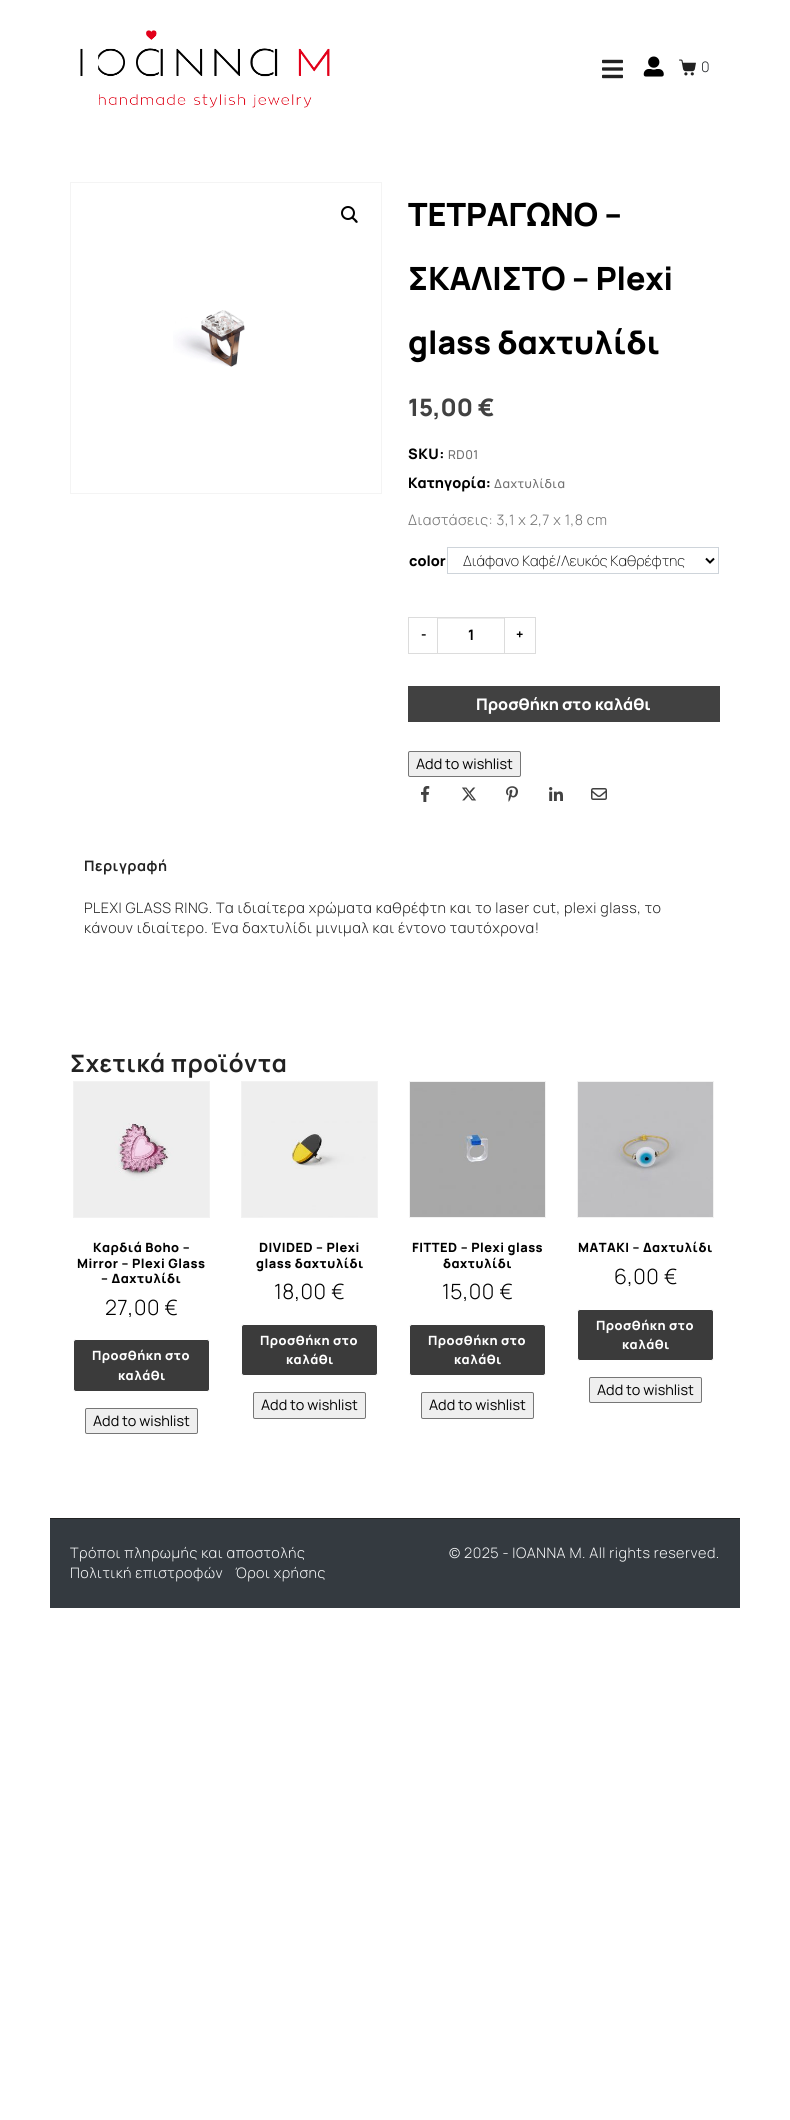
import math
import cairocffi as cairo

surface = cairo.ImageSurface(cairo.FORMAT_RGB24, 790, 2120)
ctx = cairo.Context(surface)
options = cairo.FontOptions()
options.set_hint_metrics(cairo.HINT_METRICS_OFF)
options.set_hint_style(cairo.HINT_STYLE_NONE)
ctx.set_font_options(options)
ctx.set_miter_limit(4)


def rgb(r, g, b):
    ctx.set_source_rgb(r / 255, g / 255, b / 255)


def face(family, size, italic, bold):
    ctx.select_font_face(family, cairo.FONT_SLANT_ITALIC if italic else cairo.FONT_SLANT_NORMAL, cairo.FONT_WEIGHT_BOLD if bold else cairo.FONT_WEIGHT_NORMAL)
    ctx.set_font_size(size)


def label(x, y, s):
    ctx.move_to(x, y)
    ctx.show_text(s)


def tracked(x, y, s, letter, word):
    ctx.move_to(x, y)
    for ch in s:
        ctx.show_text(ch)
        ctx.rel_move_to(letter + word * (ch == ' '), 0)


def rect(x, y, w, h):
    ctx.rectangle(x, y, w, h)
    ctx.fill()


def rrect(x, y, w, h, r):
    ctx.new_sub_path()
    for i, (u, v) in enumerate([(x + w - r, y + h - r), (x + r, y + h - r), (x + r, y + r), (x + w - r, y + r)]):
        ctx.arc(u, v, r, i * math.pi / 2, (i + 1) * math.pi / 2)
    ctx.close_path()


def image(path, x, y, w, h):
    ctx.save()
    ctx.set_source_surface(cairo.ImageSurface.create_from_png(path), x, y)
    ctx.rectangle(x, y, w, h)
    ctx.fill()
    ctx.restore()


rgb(255, 255, 255)
ctx.paint()
image('image0.png', 80, 30, 250, 78)
image('image1.png', 602, 59, 21, 20)
image('image2.png', 643, 56, 21, 21)
image('image3.png', 679, 59, 17, 17)
face('Manrope Light', 14.4, 0, 0)
rgb(33, 37, 41)
tracked(701, 72, '0', 0.5, 0)
ctx.rectangle(70.5, 182.5, 311, 311)
rgb(244, 244, 244)
ctx.set_line_width(1)
ctx.stroke()
image('image4.png', 173, 310, 72, 57)
ctx.arc(348, 213, 6, 0, 2 * math.pi)
rgb(0, 0, 0)
ctx.set_line_width(2)
ctx.stroke()
ctx.new_path()
ctx.move_to(352, 217)
ctx.curve_to(353, 216, 354.5, 218.5, 355.5, 219)
ctx.curve_to(356, 219.5, 358.5, 221.5, 357.5, 222.5)
ctx.curve_to(356, 224, 354.5, 221, 354, 220.5)
ctx.curve_to(353.5, 220, 350.5, 218, 352, 217)
ctx.close_path()
ctx.fill()
face('Manrope ExtraBold', 32, 0, 0)
label(408, 226, 'ΤΕΤΡΑΓΩΝΟ –')
label(408, 290, 'ΣΚΑΛΙΣΤΟ – Plexi')
label(408, 354, 'glass δαχτυλίδι')
face('Manrope ExtraBold', 24, 0, 0)
rgb(65, 65, 65)
label(408, 416, '15,00 €')
face('Manrope ExtraBold', 14.4, 0, 0)
rgb(0, 0, 0)
tracked(408, 459, 'SKU:', 0.5, 0)
face('Manrope Medium', 12.25, 0, 0)
rgb(112, 112, 112)
tracked(448, 459, 'RD01', 0.5, 0)
face('Manrope ExtraBold', 14.4, 0, 0)
rgb(0, 0, 0)
label(408, 488, 'Κατηγορία:')
face('Manrope Medium', 12.25, 0, 0)
rgb(112, 112, 112)
tracked(494, 488, 'Δαχτυλίδια', 0.5, 0)
face('Manrope Light', 14.4, 0, 0)
tracked(408, 525, 'Διαστάσεις: 3,1 x 2,7 x 1,8 cm', 0.5, 0)
face('Manrope ExtraBold', 14.4, 0, 0)
rgb(0, 0, 0)
label(409, 566, 'color')
ctx.rectangle(447.5, 547.5, 271, 26)
rgb(206, 212, 218)
ctx.set_line_width(1)
ctx.stroke()
ctx.new_path()
ctx.move_to(706, 558.5)
ctx.line_to(710, 562.5)
ctx.line_to(714, 558.5)
rgb(0, 0, 0)
ctx.set_line_width(2)
ctx.stroke()
face('Manrope ExtraLight', 14.4, 0, 0)
label(463, 566, 'Διάφανο Καφέ/Λευκός Καθρέφτης')
rgb(236, 236, 236)
rect(438, 618, 66, 1)
ctx.rectangle(437.5, 617.5, 67, 36)
rgb(220, 220, 220)
ctx.set_line_width(1)
ctx.stroke()
rect(408, 617, 30, 1)
rect(408, 653, 30, 1)
rect(408, 617, 1, 37)
face('Manrope ExtraBold', 13, 0, 0)
rgb(0, 0, 0)
label(421, 639, '-')
face('Manrope', 14.4, 0, 1)
label(468, 640, '1')
rgb(220, 220, 220)
rect(504, 617, 32, 1)
rect(535, 617, 1, 37)
rect(504, 653, 32, 1)
face('Manrope ExtraBold', 13, 0, 0)
rgb(0, 0, 0)
label(516, 639, '+')
rgb(65, 65, 65)
rect(408, 686, 312, 36)
face('Manrope ExtraBold', 16, 0, 0)
rgb(255, 255, 255)
label(476, 710, 'Προσθήκη στο καλάθι')
rgb(239, 239, 239)
rrect(408.5, 751.5, 112, 25, 1.5)
ctx.fill_preserve()
rgb(118, 118, 118)
ctx.stroke()
face('Manrope', 14.4, 0, 0)
rgb(0, 0, 0)
label(416, 769, 'Add to wishlist')
image('image5.png', 421, 786, 9, 16)
image('image6.png', 462, 787, 15, 14)
image('image7.png', 506, 786, 12, 16)
image('image8.png', 549, 787, 14, 14)
image('image9.png', 591, 788, 16, 12)
face('Manrope', 14.4, 0, 1)
rgb(34, 34, 34)
tracked(84, 871, 'Περιγραφή', 0.5, 0)
face('Manrope Light', 14.4, 0, 0)
tracked(84, 913, 'PLEXI GLASS RING. Τα ιδιαίτερα χρώματα καθρέφτη και το laser cut, plexi glass, το', 0.5, 0)
tracked(84, 933, 'κάνουν ιδιαίτερο. Ένα δαχτυλίδι μινιμαλ και έντονο ταυτόχρονα!', 0.5, 0)
face('Manrope', 24, 0, 1)
tracked(70, 1072, 'Σχετικά προϊόντα', 0.5, 0)
ctx.rectangle(73.5, 1081.5, 136, 136)
rgb(242, 242, 242)
ctx.stroke()
image('image10.png', 74, 1082, 135, 135)
face('Manrope ExtraBold', 12.75, 0, 0)
rgb(0, 0, 0)
tracked(93, 1252, 'Καρδιά Boho –', 0.5, 0)
tracked(77, 1268, 'Mirror – Plexi Glass', 0.5, 0)
tracked(101, 1283, '– Δαχτυλίδι', 0.5, 0)
face('Manrope Light', 21, 0, 0)
tracked(105, 1315, '27,00 €', 0.5, 0)
rgb(59, 59, 59)
rrect(73.5, 1339.5, 136, 52, 2.5)
ctx.fill_preserve()
rgb(255, 255, 255)
ctx.stroke()
face('Manrope ExtraBold', 12.75, 0, 0)
tracked(92, 1360, 'Προσθήκη στο', 0.5, 0)
tracked(118, 1380, 'καλάθι', 0.5, 0)
rgb(239, 239, 239)
rrect(85.5, 1408.5, 112, 25, 1.5)
ctx.fill_preserve()
rgb(118, 118, 118)
ctx.stroke()
face('Manrope', 14.4, 0, 0)
rgb(0, 0, 0)
label(93, 1426, 'Add to wishlist')
ctx.rectangle(241.5, 1081.5, 136, 136)
rgb(242, 242, 242)
ctx.stroke()
image('image11.png', 242, 1082, 135, 135)
face('Manrope ExtraBold', 12.75, 0, 0)
rgb(0, 0, 0)
tracked(259, 1252, 'DIVIDED – Plexi', 0.5, 0)
tracked(256, 1268, 'glass δαχτυλίδι', 0.5, 0)
face('Manrope Light', 21, 0, 0)
tracked(274, 1299, '18,00 €', 0.5, 0)
rgb(59, 59, 59)
rrect(241.5, 1324.5, 136, 51, 2.5)
ctx.fill_preserve()
rgb(255, 255, 255)
ctx.stroke()
face('Manrope ExtraBold', 12.75, 0, 0)
tracked(260, 1345, 'Προσθήκη στο', 0.5, 0)
tracked(286, 1364, 'καλάθι', 0.5, 0)
rgb(239, 239, 239)
rrect(253.5, 1392.5, 112, 26, 1.5)
ctx.fill_preserve()
rgb(118, 118, 118)
ctx.stroke()
face('Manrope', 14.4, 0, 0)
rgb(0, 0, 0)
label(261, 1410, 'Add to wishlist')
ctx.rectangle(409.5, 1081.5, 136, 136)
rgb(242, 242, 242)
ctx.stroke()
image('image12.png', 410, 1082, 135, 135)
face('Manrope ExtraBold', 12.75, 0, 0)
rgb(0, 0, 0)
tracked(412, 1252, 'FITTED – Plexi glass', 0.5, 0)
tracked(443, 1268, 'δαχτυλίδι', 0.5, 0)
face('Manrope Light', 21, 0, 0)
tracked(442, 1299, '15,00 €', 0.5, 0)
rgb(59, 59, 59)
rrect(409.5, 1324.5, 136, 51, 2.5)
ctx.fill_preserve()
rgb(255, 255, 255)
ctx.stroke()
face('Manrope ExtraBold', 12.75, 0, 0)
tracked(428, 1345, 'Προσθήκη στο', 0.5, 0)
tracked(454, 1364, 'καλάθι', 0.5, 0)
rgb(239, 239, 239)
rrect(421.5, 1392.5, 112, 26, 1.5)
ctx.fill_preserve()
rgb(118, 118, 118)
ctx.stroke()
face('Manrope', 14.4, 0, 0)
rgb(0, 0, 0)
label(429, 1410, 'Add to wishlist')
ctx.rectangle(577.5, 1081.5, 136, 136)
rgb(242, 242, 242)
ctx.stroke()
image('image13.png', 578, 1082, 135, 135)
face('Manrope ExtraBold', 12.75, 0, 0)
rgb(0, 0, 0)
tracked(578, 1252, 'ΜΑΤΑΚΙ – Δαχτυλίδι', 0.5, 0)
face('Manrope Light', 21, 0, 0)
tracked(614, 1284, '6,00 €', 0.5, 0)
rgb(59, 59, 59)
rrect(577.5, 1309.5, 136, 51, 2.5)
ctx.fill_preserve()
rgb(255, 255, 255)
ctx.stroke()
face('Manrope ExtraBold', 12.75, 0, 0)
tracked(596, 1330, 'Προσθήκη στο', 0.5, 0)
tracked(622, 1349, 'καλάθι', 0.5, 0)
rgb(239, 239, 239)
rrect(589.5, 1377.5, 112, 25, 1.5)
ctx.fill_preserve()
rgb(118, 118, 118)
ctx.stroke()
face('Manrope', 14.4, 0, 0)
rgb(0, 0, 0)
label(597, 1395, 'Add to wishlist')
rgb(52, 58, 64)
rect(50, 1519, 690, 89)
rgb(34, 34, 34)
rect(50, 1518, 690, 1)
face('Manrope Light', 14.4, 0, 0)
rgb(248, 249, 250)
tracked(70, 1558, 'Τρόποι πληρωμής και αποστολής', 0.5, 0)
tracked(70, 1578, 'Πολιτική επιστροφών', 0.5, 0)
tracked(235, 1578, 'Όροι χρήσης', 0.5, 0)
tracked(449, 1558, '© 2025 - IOANNA M. All rights reserved.', 0.5, 0)
surface.write_to_png('render.png')
